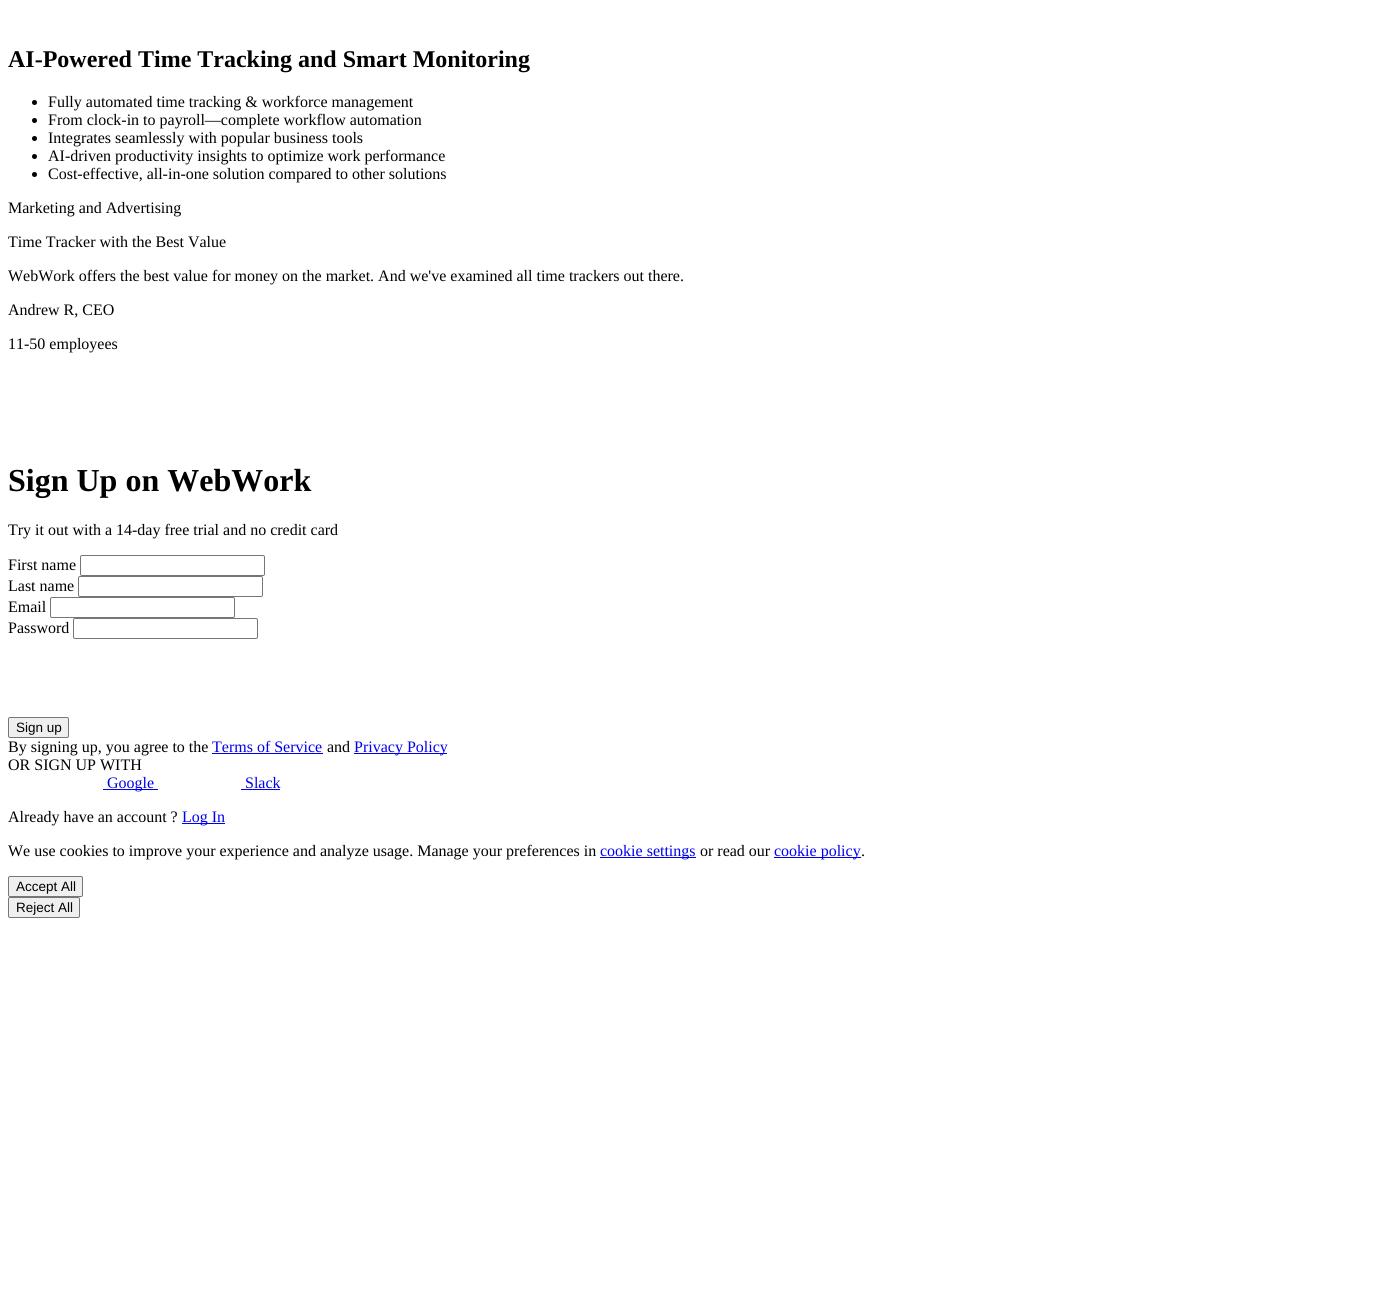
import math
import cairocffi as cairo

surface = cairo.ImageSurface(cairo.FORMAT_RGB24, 1374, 1308)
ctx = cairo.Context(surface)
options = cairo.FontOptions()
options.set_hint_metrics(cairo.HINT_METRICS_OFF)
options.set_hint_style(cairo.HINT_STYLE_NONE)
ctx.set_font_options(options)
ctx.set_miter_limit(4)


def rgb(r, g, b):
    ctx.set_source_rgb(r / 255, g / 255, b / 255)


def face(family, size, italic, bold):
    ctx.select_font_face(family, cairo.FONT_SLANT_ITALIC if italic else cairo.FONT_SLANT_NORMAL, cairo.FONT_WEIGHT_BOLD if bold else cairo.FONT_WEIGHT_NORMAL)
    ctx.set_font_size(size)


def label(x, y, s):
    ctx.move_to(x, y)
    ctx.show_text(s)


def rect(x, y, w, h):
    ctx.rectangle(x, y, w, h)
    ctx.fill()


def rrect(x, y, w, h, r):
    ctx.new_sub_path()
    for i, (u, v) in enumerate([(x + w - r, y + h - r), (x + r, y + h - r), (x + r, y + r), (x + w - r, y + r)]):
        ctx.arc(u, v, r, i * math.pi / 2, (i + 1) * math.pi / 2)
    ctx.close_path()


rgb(255, 255, 255)
ctx.paint()
face('Liberation Serif', 24, 0, 1)
rgb(0, 0, 0)
label(8, 67, 'AI-Powered Time Tracking and Smart Monitoring')
ctx.new_path()
ctx.arc(34.5, 102.5, 2.5, 0, 2 * math.pi)
ctx.fill()
face('Liberation Serif', 16, 0, 0)
label(48, 107, 'Fully automated time tracking & workforce management')
ctx.new_path()
ctx.arc(34.5, 120.5, 2.5, 0, 2 * math.pi)
ctx.fill()
label(48, 125, 'From clock-in to payroll—complete workflow automation')
ctx.new_path()
ctx.arc(34.5, 138.5, 2.5, 0, 2 * math.pi)
ctx.fill()
label(48, 143, 'Integrates seamlessly with popular business tools')
ctx.new_path()
ctx.arc(34.5, 156.5, 2.5, 0, 2 * math.pi)
ctx.fill()
label(48, 161, 'AI-driven productivity insights to optimize work performance')
ctx.new_path()
ctx.arc(34.5, 174.5, 2.5, 0, 2 * math.pi)
ctx.fill()
label(48, 179, 'Cost-effective, all-in-one solution compared to other solutions')
label(8, 213, 'Marketing and Advertising')
label(8, 247, 'Time Tracker with the Best Value')
label(8, 281, 'WebWork offers the best value for money on the market. And we\'ve examined all time trackers out there.')
label(8, 315, 'Andrew R, CEO')
label(8, 349, '11-50 employees')
face('Liberation Serif', 32, 0, 1)
label(8, 491, 'Sign Up on WebWork')
face('Liberation Serif', 16, 0, 0)
label(8, 535, 'Try it out with a 14-day free trial and no credit card')
label(8, 570, 'First name')
rrect(80.5, 555.5, 184, 20, 1.5)
rgb(118, 118, 118)
ctx.set_line_width(1)
ctx.stroke()
rgb(0, 0, 0)
label(8, 591, 'Last name')
rrect(78.5, 576.5, 184, 20, 1.5)
rgb(118, 118, 118)
ctx.stroke()
rgb(0, 0, 0)
label(8, 612, 'Email')
rrect(50.5, 597.5, 184, 20, 1.5)
rgb(118, 118, 118)
ctx.stroke()
rgb(0, 0, 0)
label(8, 633, 'Password')
rrect(73.5, 618.5, 184, 20, 1.5)
rgb(118, 118, 118)
ctx.stroke()
rgb(239, 239, 239)
rrect(8.5, 717.5, 60, 20, 1.5)
ctx.fill_preserve()
rgb(118, 118, 118)
ctx.stroke()
face('Liberation Sans', 13.5, 0, 0)
rgb(0, 0, 0)
label(16, 732, 'Sign up')
face('Liberation Serif', 16, 0, 0)
label(8, 752, 'By signing up, you agree to the')
rgb(0, 0, 238)
label(212, 752, 'Terms of Service')
rect(212, 753, 111, 1)
rgb(0, 0, 0)
label(327, 752, 'and')
rgb(0, 0, 238)
rect(354, 753, 93, 1)
label(354, 752, 'Privacy Policy')
rgb(0, 0, 0)
label(8, 770, 'OR SIGN UP WITH')
rgb(0, 0, 238)
rect(103, 789, 55, 1)
label(107, 788, 'Google')
label(245, 788, 'Slack')
rect(241, 789, 39, 1)
rgb(0, 0, 0)
label(8, 822, 'Already have an account ?')
rgb(0, 0, 238)
rect(182, 823, 43, 1)
label(182, 822, 'Log In')
rgb(0, 0, 0)
label(8, 856, 'We use cookies to improve your experience and analyze usage. Manage your preferences in')
rgb(0, 0, 238)
rect(600, 857, 96, 1)
label(600, 856, 'cookie settings')
rgb(0, 0, 0)
label(700, 856, 'or read our')
rgb(0, 0, 238)
rect(774, 857, 87, 1)
label(774, 856, 'cookie policy')
rgb(0, 0, 0)
label(861, 856, '.')
rgb(239, 239, 239)
rrect(8.5, 876.5, 74, 20, 1.5)
ctx.fill_preserve()
rgb(118, 118, 118)
ctx.stroke()
face('Liberation Sans', 13.5, 0, 0)
rgb(0, 0, 0)
label(16, 891, 'Accept All')
rgb(239, 239, 239)
rrect(8.5, 897.5, 71, 20, 1.5)
ctx.fill_preserve()
rgb(118, 118, 118)
ctx.stroke()
rgb(0, 0, 0)
label(16, 912, 'Reject All')
surface.write_to_png('render.png')
